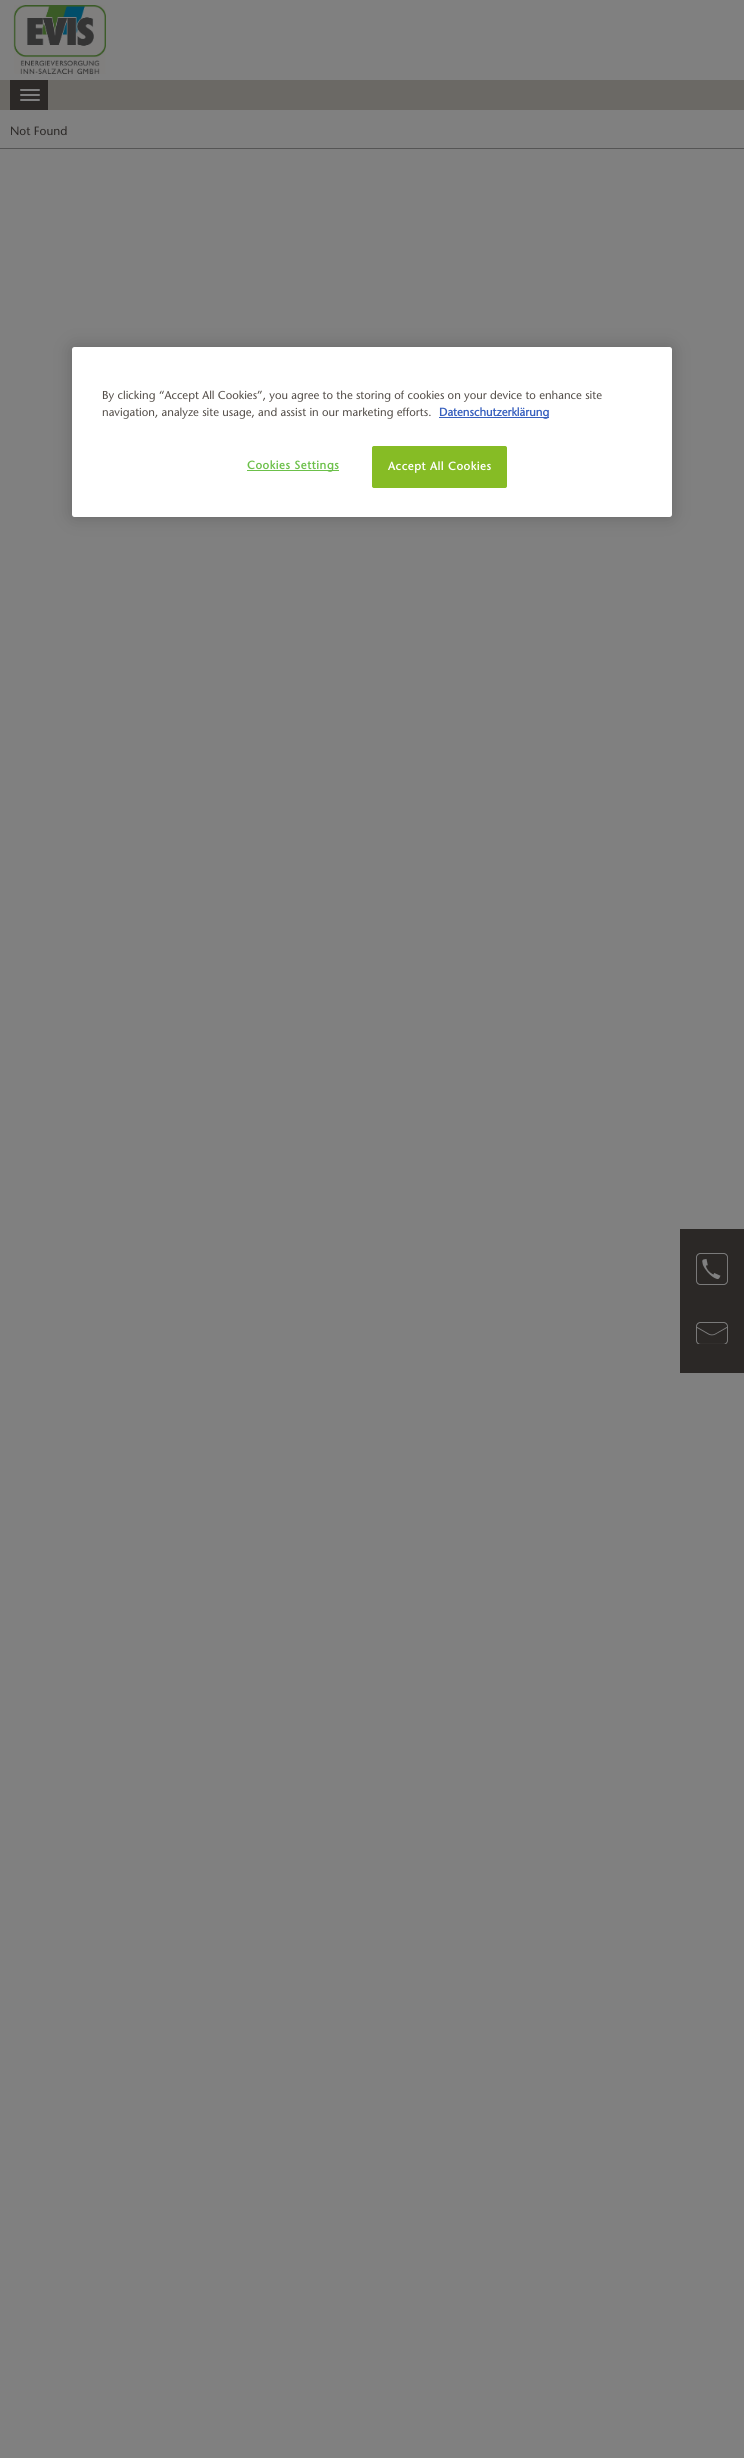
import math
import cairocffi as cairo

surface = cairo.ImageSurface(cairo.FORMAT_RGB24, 744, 2458)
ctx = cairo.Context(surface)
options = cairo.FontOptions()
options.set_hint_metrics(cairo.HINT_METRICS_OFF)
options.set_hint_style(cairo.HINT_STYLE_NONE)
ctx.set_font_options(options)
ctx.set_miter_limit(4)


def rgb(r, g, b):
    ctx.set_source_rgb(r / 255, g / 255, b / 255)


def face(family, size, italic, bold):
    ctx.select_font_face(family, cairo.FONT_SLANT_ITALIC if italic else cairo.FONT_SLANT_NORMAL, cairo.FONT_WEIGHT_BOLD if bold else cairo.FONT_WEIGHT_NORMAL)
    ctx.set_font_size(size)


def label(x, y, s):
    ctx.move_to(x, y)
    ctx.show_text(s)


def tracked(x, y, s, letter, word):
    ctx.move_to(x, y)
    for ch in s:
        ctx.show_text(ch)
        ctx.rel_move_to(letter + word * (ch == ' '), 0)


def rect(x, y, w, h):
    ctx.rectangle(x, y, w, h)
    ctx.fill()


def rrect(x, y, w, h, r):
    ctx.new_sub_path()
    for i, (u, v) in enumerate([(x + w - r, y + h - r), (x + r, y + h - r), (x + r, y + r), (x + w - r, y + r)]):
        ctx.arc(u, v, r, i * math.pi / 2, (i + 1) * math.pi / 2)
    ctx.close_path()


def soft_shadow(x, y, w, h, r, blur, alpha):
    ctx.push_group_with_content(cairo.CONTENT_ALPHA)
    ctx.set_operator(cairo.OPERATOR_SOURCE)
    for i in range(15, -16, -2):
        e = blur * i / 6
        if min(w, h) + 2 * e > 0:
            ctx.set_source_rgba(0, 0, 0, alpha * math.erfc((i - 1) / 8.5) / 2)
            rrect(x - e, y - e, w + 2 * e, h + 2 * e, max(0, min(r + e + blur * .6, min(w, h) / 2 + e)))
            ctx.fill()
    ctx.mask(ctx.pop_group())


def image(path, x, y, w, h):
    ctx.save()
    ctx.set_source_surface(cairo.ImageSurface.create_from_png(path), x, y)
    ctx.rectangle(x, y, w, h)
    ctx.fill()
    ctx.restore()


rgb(128, 128, 128)
ctx.paint()
image('image0.png', 13, 5, 93, 69)
rgb(107, 105, 101)
rect(0, 80, 744, 30)
rgb(43, 40, 38)
rect(10, 80, 38, 30)
image('image1.png', 20, 89, 20, 12)
rgb(85, 85, 85)
rect(0, 148, 744, 1)
face('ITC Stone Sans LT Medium', 12, 0, 0)
rgb(43, 40, 38)
label(10, 135, 'Not Found')
rgb(0, 0, 0)
soft_shadow(72, 347, 600, 170, 2.5, 9, 0.2)
rgb(255, 255, 255)
rrect(72, 347, 600, 170, 2.5)
ctx.fill()
face('ITC Stone Sans LT Medium', 11.4, 0, 0)
rgb(83, 77, 72)
label(102, 399, 'By clicking “Accept All Cookies”, you agree to the storing of cookies on your device to enhance site')
label(102, 416, 'navigation, analyze site usage, and assist in our marketing efforts.')
rgb(56, 96, 190)
rect(439, 417, 110, 1)
face('ITC Stone Sans LT', 11.4, 0, 1)
label(439, 416, 'Datenschutzerklärung')
rgb(108, 192, 74)
rect(247, 470, 92, 1)
tracked(247, 469, 'Cookies Settings', 0.6, 0)
rgb(134, 188, 37)
rrect(372.5, 446.5, 134, 41, 1.5)
ctx.fill_preserve()
ctx.set_line_width(1)
ctx.stroke()
rgb(255, 255, 255)
tracked(388, 470, 'Accept All Cookies', 0.6, 0)
rgb(43, 40, 38)
rect(680, 1229, 64, 144)
image('image2.png', 696, 1253, 32, 32)
image('image3.png', 696, 1322, 32, 22)
surface.write_to_png('render.png')
